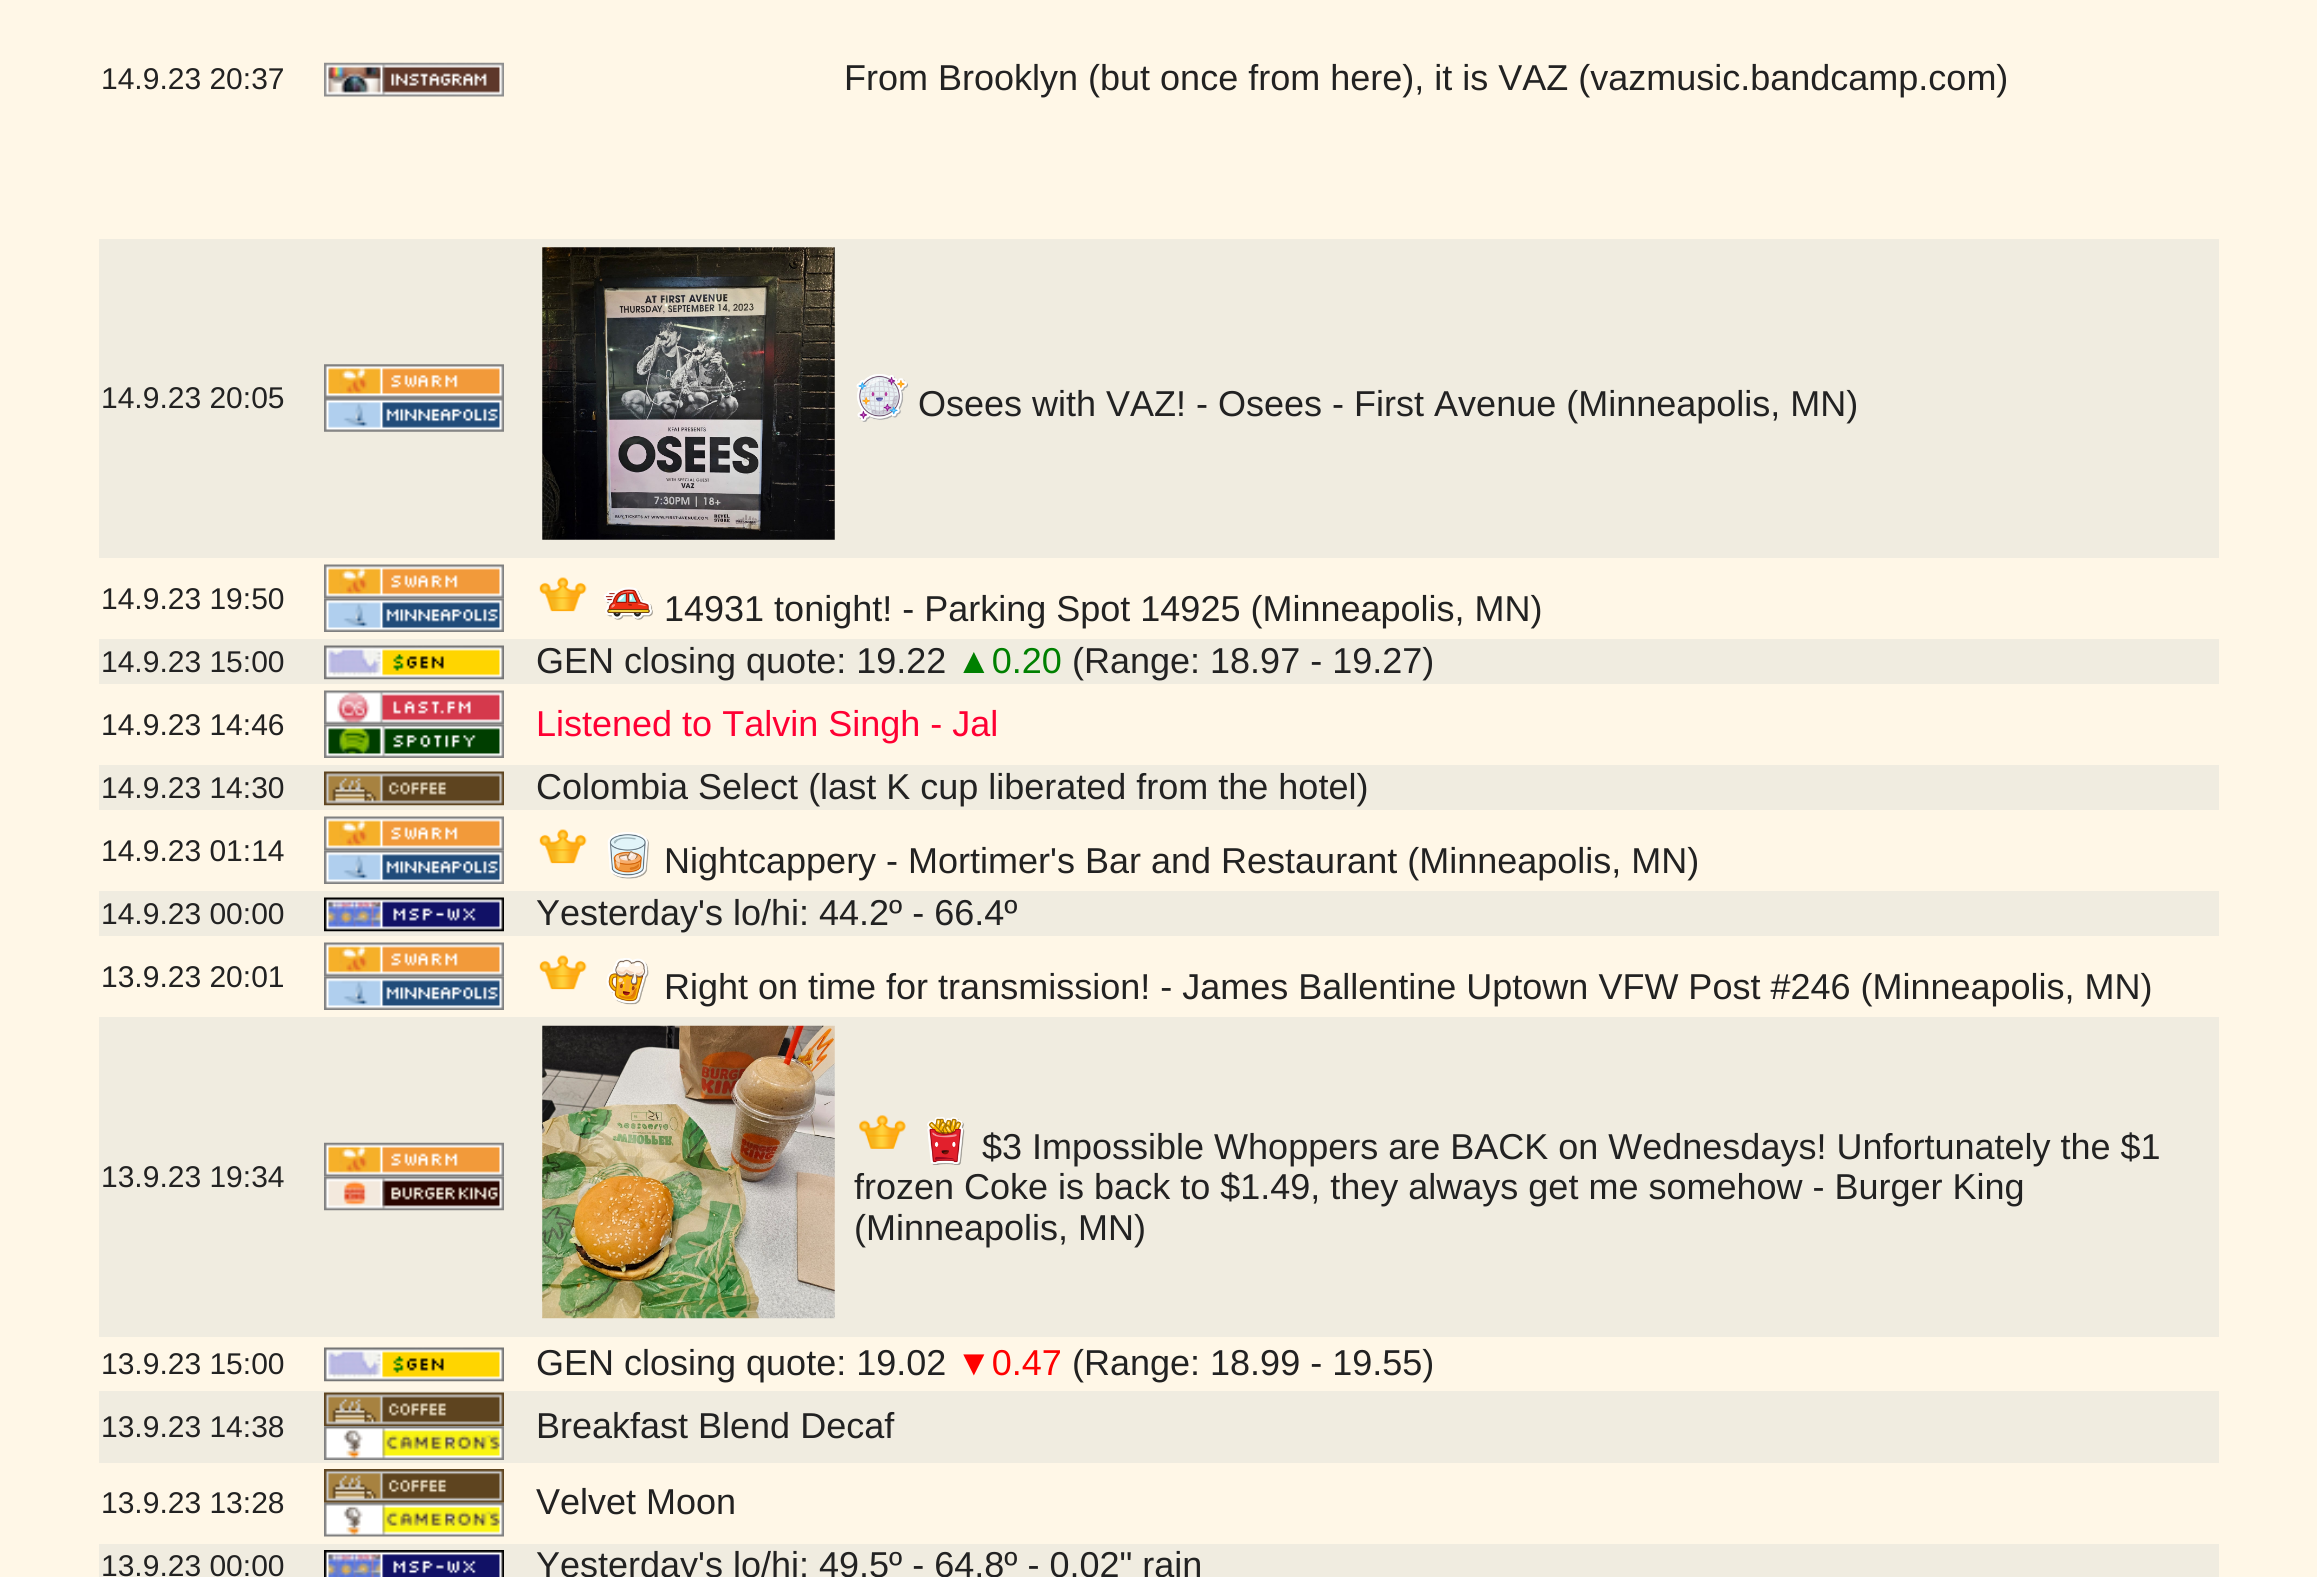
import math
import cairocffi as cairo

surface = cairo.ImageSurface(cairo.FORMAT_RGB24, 2317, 1577)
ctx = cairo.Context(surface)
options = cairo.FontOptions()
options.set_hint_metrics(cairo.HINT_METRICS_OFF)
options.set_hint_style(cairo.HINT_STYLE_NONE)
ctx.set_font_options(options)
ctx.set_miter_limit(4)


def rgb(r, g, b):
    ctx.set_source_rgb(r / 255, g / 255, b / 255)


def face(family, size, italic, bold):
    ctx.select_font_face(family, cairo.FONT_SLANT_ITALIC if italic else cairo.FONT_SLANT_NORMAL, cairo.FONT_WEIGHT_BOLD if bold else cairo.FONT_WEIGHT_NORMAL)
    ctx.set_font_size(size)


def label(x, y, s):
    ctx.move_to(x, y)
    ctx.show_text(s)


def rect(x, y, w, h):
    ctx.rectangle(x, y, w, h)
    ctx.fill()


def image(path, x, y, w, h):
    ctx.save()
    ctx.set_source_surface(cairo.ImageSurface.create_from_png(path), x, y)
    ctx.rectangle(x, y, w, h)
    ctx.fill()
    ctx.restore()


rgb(255, 247, 231)
ctx.paint()
face('Liberation Sans', 30, 0, 0)
rgb(34, 34, 34)
label(101, 89, '14.9.23 20:37')
image('image0.png', 324, 62, 180, 35)
face('Liberation Sans', 36, 0, 0)
label(844, 90, 'From Brooklyn (but once from here), it is VAZ (vazmusic.bandcamp.com)')
rgb(240, 236, 224)
rect(99, 239, 2120, 319)
face('Liberation Sans', 30, 0, 0)
rgb(34, 34, 34)
label(101, 408, '14.9.23 20:05')
image('image1.png', 324, 364, 180, 34)
image('image2.png', 324, 398, 180, 34)
image('image3.png', 542, 247, 293, 293)
image('image4.png', 856, 374, 52, 48)
face('Liberation Sans', 36, 0, 0)
label(918, 416, 'Osees with VAZ! - Osees - First Avenue (Minneapolis, MN)')
face('Liberation Sans', 30, 0, 0)
label(101, 609, '14.9.23 19:50')
image('image5.png', 324, 564, 180, 35)
image('image6.png', 324, 598, 180, 34)
image('image7.png', 539, 577, 48, 35)
image('image8.png', 603, 587, 50, 33)
face('Liberation Sans', 36, 0, 0)
label(664, 621, '14931 tonight! - Parking Spot 14925 (Minneapolis, MN)')
rgb(240, 236, 224)
rect(99, 639, 2120, 45)
face('Liberation Sans', 30, 0, 0)
rgb(34, 34, 34)
label(101, 672, '14.9.23 15:00')
image('image9.png', 324, 645, 180, 35)
face('Liberation Sans', 36, 0, 0)
label(536, 673, 'GEN closing quote: 19.22')
rgb(0, 128, 0)
label(956, 673, '▲0.20')
rgb(34, 34, 34)
label(1072, 673, '(Range: 18.97 - 19.27)')
face('Liberation Sans', 30, 0, 0)
label(101, 735, '14.9.23 14:46')
image('image10.png', 324, 690, 180, 35)
image('image11.png', 324, 724, 180, 34)
face('Liberation Sans', 36, 0, 0)
rgb(255, 0, 51)
label(536, 736, 'Listened to Talvin Singh - Jal')
rgb(240, 236, 224)
rect(99, 765, 2120, 45)
face('Liberation Sans', 30, 0, 0)
rgb(34, 34, 34)
label(101, 798, '14.9.23 14:30')
image('image12.png', 324, 771, 180, 35)
face('Liberation Sans', 36, 0, 0)
label(536, 799, 'Colombia Select (last K cup liberated from the hotel)')
face('Liberation Sans', 30, 0, 0)
label(101, 861, '14.9.23 01:14')
image('image13.png', 324, 816, 180, 35)
image('image14.png', 324, 850, 180, 34)
image('image7.png', 539, 829, 48, 35)
image('image15.png', 607, 832, 42, 47)
face('Liberation Sans', 36, 0, 0)
label(664, 873, 'Nightcappery - Mortimer\'s Bar and Restaurant (Minneapolis, MN)')
rgb(240, 236, 224)
rect(99, 891, 2120, 45)
face('Liberation Sans', 30, 0, 0)
rgb(34, 34, 34)
label(101, 924, '14.9.23 00:00')
image('image16.png', 324, 897, 180, 35)
face('Liberation Sans', 36, 0, 0)
label(536, 925, 'Yesterday\'s lo/hi: 44.2º - 66.4º')
face('Liberation Sans', 30, 0, 0)
label(101, 987, '13.9.23 20:01')
image('image5.png', 324, 942, 180, 35)
image('image17.png', 324, 976, 180, 34)
image('image7.png', 539, 955, 48, 35)
image('image18.png', 606, 958, 43, 47)
face('Liberation Sans', 36, 0, 0)
label(664, 999, 'Right on time for transmission! - James Ballentine Uptown VFW Post #246 (Minneapolis, MN)')
rgb(240, 236, 224)
rect(99, 1017, 2120, 320)
face('Liberation Sans', 30, 0, 0)
rgb(34, 34, 34)
label(101, 1187, '13.9.23 19:34')
image('image19.png', 324, 1142, 180, 35)
image('image20.png', 324, 1176, 180, 35)
image('image21.png', 542, 1025, 293, 294)
image('image22.png', 859, 1115, 47, 34)
image('image23.png', 927, 1117, 38, 48)
face('Liberation Sans', 36, 0, 0)
label(982, 1159, '$3 Impossible Whoppers are BACK on Wednesdays! Unfortunately the $1')
label(854, 1199, 'frozen Coke is back to $1.49, they always get me somehow - Burger King')
label(854, 1240, '(Minneapolis, MN)')
face('Liberation Sans', 30, 0, 0)
label(101, 1374, '13.9.23 15:00')
image('image24.png', 324, 1347, 180, 35)
face('Liberation Sans', 36, 0, 0)
label(536, 1375, 'GEN closing quote: 19.02')
rgb(255, 0, 0)
label(956, 1375, '▼0.47')
rgb(34, 34, 34)
label(1072, 1375, '(Range: 18.99 - 19.55)')
rgb(240, 236, 224)
rect(99, 1391, 2120, 72)
face('Liberation Sans', 30, 0, 0)
rgb(34, 34, 34)
label(101, 1437, '13.9.23 14:38')
image('image12.png', 324, 1392, 180, 35)
image('image25.png', 324, 1426, 180, 34)
face('Liberation Sans', 36, 0, 0)
label(536, 1438, 'Breakfast Blend Decaf')
face('Liberation Sans', 30, 0, 0)
label(101, 1513, '13.9.23 13:28')
image('image26.png', 324, 1469, 180, 34)
image('image27.png', 324, 1502, 180, 35)
face('Liberation Sans', 36, 0, 0)
label(536, 1514, 'Velvet Moon')
rgb(240, 236, 224)
rect(99, 1544, 2120, 33)
face('Liberation Sans', 30, 0, 0)
rgb(34, 34, 34)
label(101, 1576, '13.9.23 00:00')
image('image28.png', 324, 1550, 180, 27)
face('Liberation Sans', 36, 0, 0)
label(536, 1577, 'Yesterday\'s lo/hi: 49.5º - 64.8º - 0.02" rain')
surface.write_to_png('render.png')
